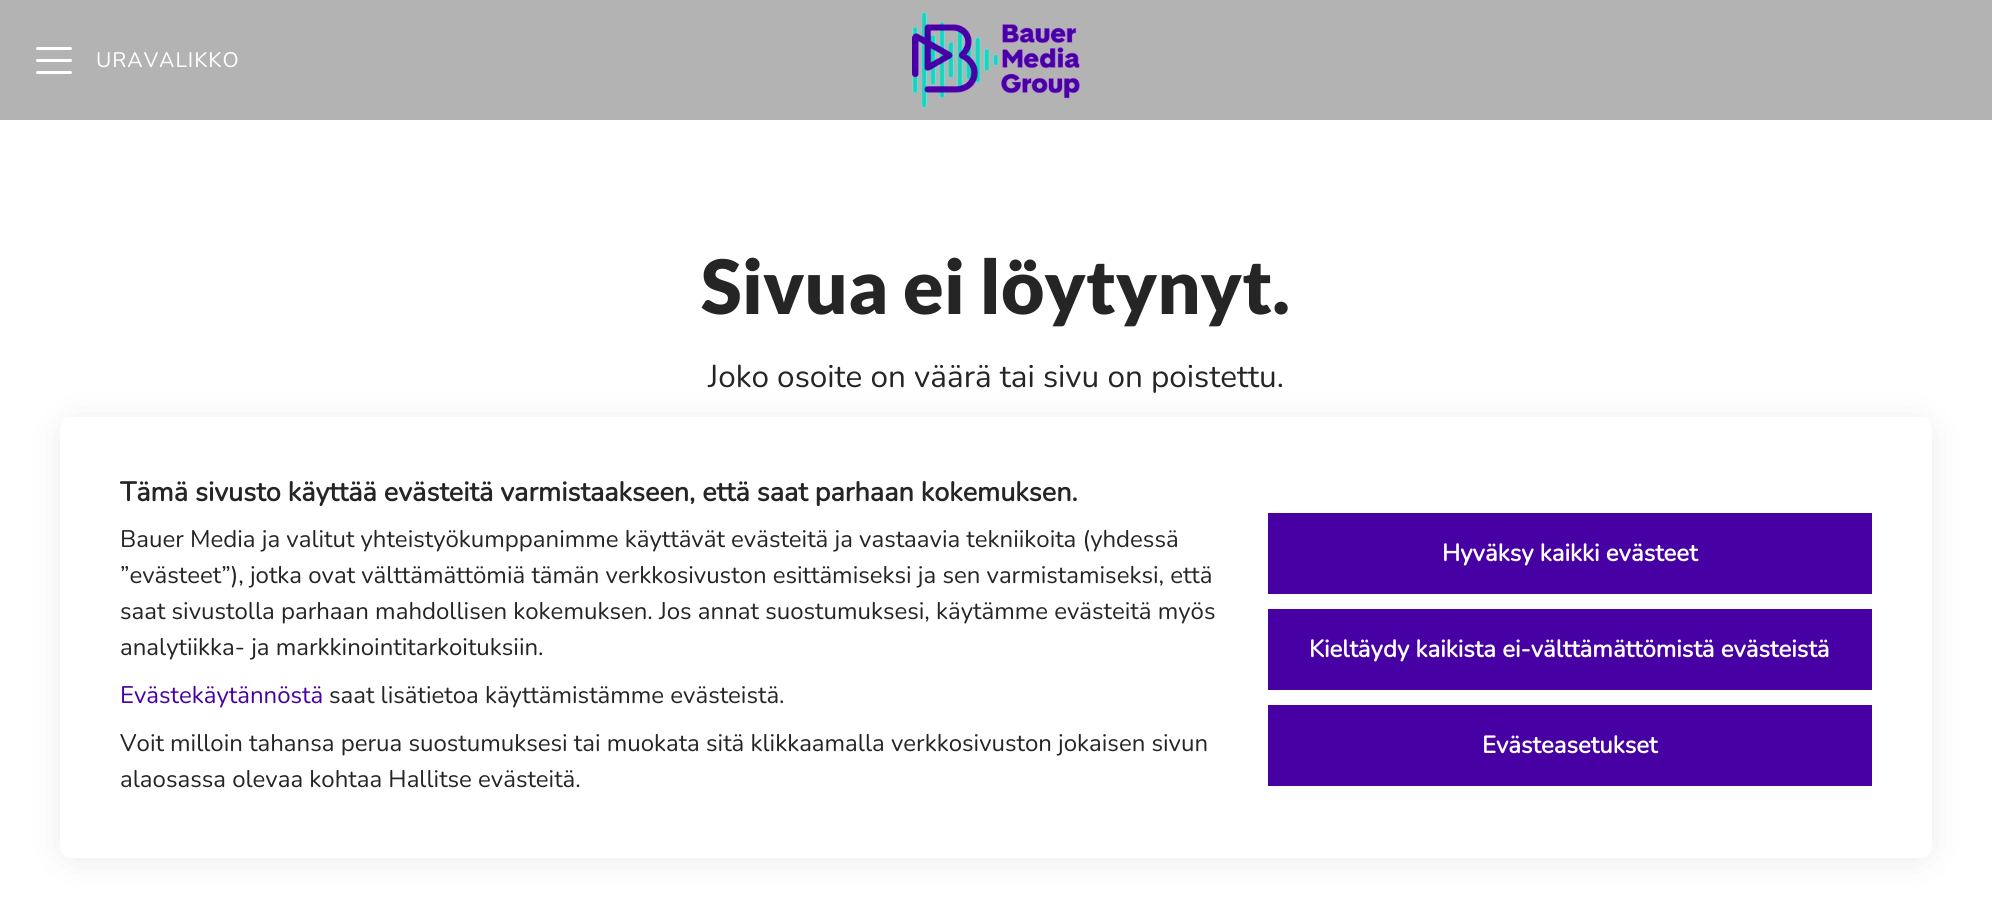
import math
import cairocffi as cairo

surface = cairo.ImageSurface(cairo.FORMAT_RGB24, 1992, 918)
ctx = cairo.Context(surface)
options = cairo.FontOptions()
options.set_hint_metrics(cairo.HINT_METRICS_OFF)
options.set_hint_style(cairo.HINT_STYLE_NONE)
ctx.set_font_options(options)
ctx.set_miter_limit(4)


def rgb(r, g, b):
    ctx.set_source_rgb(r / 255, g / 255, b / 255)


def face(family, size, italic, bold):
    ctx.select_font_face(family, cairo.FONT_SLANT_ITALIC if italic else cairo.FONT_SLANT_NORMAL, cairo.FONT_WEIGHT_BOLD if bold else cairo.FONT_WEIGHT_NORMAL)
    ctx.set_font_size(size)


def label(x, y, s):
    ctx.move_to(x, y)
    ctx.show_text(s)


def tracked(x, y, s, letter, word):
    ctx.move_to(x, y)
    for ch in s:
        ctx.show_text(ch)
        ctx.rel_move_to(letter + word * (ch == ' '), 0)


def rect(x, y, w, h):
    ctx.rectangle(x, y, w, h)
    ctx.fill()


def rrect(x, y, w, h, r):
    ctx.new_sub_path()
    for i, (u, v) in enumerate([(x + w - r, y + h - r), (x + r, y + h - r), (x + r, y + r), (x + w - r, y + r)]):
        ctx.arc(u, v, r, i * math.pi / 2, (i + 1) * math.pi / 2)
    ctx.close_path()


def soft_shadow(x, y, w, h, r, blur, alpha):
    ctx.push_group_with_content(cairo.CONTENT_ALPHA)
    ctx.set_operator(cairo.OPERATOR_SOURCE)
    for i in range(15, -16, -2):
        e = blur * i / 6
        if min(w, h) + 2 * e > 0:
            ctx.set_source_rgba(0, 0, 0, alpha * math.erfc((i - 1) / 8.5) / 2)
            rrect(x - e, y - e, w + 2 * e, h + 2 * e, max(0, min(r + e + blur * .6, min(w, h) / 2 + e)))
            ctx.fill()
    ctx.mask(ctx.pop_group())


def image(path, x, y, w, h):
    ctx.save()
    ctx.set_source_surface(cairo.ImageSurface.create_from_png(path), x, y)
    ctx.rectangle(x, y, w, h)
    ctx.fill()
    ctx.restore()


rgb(255, 255, 255)
ctx.paint()
rgb(179, 179, 179)
rect(0, 0, 1992, 120)
rgb(255, 255, 255)
rrect(36, 47, 36, 3, 1.5)
ctx.fill()
rrect(36, 59, 36, 3, 1.5)
ctx.fill()
rrect(36, 71, 36, 3, 1.5)
ctx.fill()
face('Nunito', 21, 0, 0)
tracked(96, 67, 'URAVALIKKO', 1, 0)
image('image0.png', 912, 12, 168, 96)
face('Lato Black', 75, 0, 0)
rgb(37, 37, 37)
label(701, 314, 'Sivua ei löytynyt.')
face('Nunito', 31.5, 0, 0)
label(708, 387, 'Joko osoite on väärä tai sivu on poistettu.')
rgb(0, 0, 0)
soft_shadow(75, 435, 1842, 411, 0, 20, 0.18)
rgb(255, 255, 255)
rrect(60, 417, 1872, 441, 12)
ctx.fill()
face('Nunito', 27, 0, 1)
rgb(37, 37, 37)
label(120, 501, 'Tämä sivusto käyttää evästeitä varmistaakseen, että saat parhaan kokemuksen.')
face('Nunito', 24, 0, 0)
label(120, 547, 'Bauer Media ja valitut yhteistyökumppanimme käyttävät evästeitä ja vastaavia tekniikoita (yhdessä')
label(120, 583, '”evästeet”), jotka ovat välttämättömiä tämän verkkosivuston esittämiseksi ja sen varmistamiseksi, että')
label(120, 619, 'saat sivustolla parhaan mahdollisen kokemuksen. Jos annat suostumuksesi, käytämme evästeitä myös')
label(120, 655, 'analytiikka- ja markkinointitarkoituksiin.')
rgb(71, 0, 163)
label(120, 703, 'Evästekäytännöstä')
rgb(37, 37, 37)
label(329, 703, 'saat lisätietoa käyttämistämme evästeistä.')
label(120, 751, 'Voit milloin tahansa perua suostumuksesi tai muokata sitä klikkaamalla verkkosivuston jokaisen sivun')
label(120, 787, 'alaosassa olevaa kohtaa Hallitse evästeitä.')
rgb(71, 0, 163)
rect(1268, 513, 604, 81)
face('Nunito', 24, 0, 1)
rgb(255, 255, 255)
label(1442, 561, 'Hyväksy kaikki evästeet')
rgb(71, 0, 163)
rect(1268, 609, 604, 81)
rgb(255, 255, 255)
label(1309, 657, 'Kieltäydy kaikista ei-välttämättömistä evästeistä')
rgb(71, 0, 163)
rect(1268, 705, 604, 81)
rgb(255, 255, 255)
label(1482, 753, 'Evästeasetukset')
surface.write_to_png('render.png')
